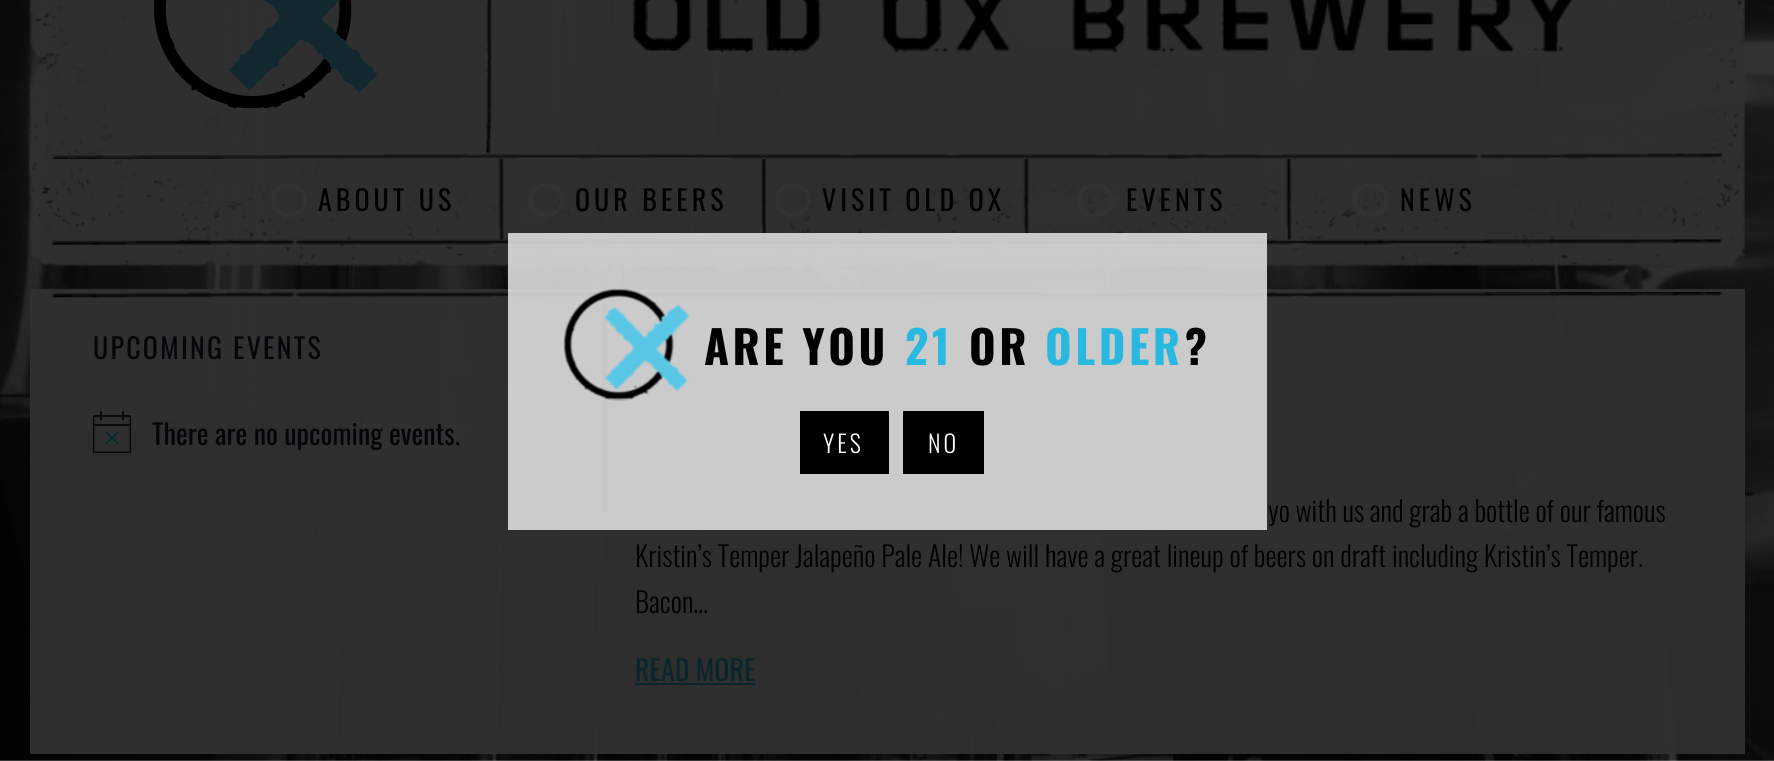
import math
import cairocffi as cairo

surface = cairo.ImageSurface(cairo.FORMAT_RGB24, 1774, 761)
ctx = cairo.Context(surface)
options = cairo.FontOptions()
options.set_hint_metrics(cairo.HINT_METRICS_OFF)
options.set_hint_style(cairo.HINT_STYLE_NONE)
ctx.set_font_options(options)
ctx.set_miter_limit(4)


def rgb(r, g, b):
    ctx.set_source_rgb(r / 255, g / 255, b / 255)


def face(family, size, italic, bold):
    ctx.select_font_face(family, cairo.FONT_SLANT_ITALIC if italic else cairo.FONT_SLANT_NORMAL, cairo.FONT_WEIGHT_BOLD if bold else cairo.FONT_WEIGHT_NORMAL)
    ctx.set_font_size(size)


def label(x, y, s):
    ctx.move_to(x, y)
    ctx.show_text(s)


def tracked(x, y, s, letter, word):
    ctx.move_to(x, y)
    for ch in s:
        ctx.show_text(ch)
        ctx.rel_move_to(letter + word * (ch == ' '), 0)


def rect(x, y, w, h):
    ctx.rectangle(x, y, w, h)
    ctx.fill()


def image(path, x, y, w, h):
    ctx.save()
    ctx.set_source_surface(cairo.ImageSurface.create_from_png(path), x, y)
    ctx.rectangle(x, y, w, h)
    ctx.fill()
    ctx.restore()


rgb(255, 255, 255)
ctx.paint()
image('image0.png', 0, 0, 1774, 761)
image('image1.png', 29, 0, 1716, 266)
image('image5.png', 51, 153, 1672, 92)
image('image2.png', 486, 0, 6, 154)
image('image3.png', 154, 0, 224, 108)
image('image4.png', 633, 0, 940, 53)
image('image6.png', 271, 183, 36, 34)
face('Oswald', 28, 0, 0)
rgb(0, 0, 0)
tracked(318, 211, 'ABOUT US', 4, 0)
image('image7.png', 498, 159, 6, 81)
image('image8.png', 528, 183, 36, 34)
tracked(575, 211, 'OUR BEERS', 4, 0)
image('image9.png', 761, 159, 6, 81)
image('image10.png', 775, 183, 36, 34)
tracked(822, 211, 'VISIT OLD OX', 4, 0)
image('image11.png', 1023, 159, 6, 81)
image('image12.png', 1078, 183, 36, 34)
tracked(1126, 211, 'EVENTS', 4, 0)
image('image13.png', 1286, 159, 6, 81)
image('image14.png', 1352, 183, 36, 34)
tracked(1400, 211, 'NEWS', 4, 0)
ctx.set_source_rgba(0.188, 0.188, 0.188, 0.96)
rect(30, 289, 1715, 465)
image('image17.png', 602, 297, 6, 214)
image('image16.png', 51, 292, 1672, 6)
ctx.set_source_rgba(0.863, 0.863, 0.863, 0.9)
rect(508, 233, 759, 297)
image('image15.png', 563, 288, 127, 113)
face('Oswald', 45.5, 0, 1)
rgb(0, 0, 0)
tracked(704, 365, 'ARE YOU', 3.5, 0)
rgb(40, 184, 224)
tracked(905, 365, '21', 3.5, 0)
rgb(0, 0, 0)
tracked(969, 365, 'OR', 3.5, 0)
rgb(40, 184, 224)
tracked(1045, 365, 'OLDER', 3.5, 0)
rgb(0, 0, 0)
tracked(1185, 365, '?', 3.5, 0)
rect(800, 411, 89, 63)
face('Oswald Light', 24, 0, 0)
rgb(255, 255, 255)
tracked(823, 453, 'YES', 3, 0)
rgb(0, 0, 0)
rect(903, 411, 81, 63)
rgb(255, 255, 255)
tracked(928, 453, 'NO', 3, 0)
face('Oswald', 28, 0, 0)
rgb(4, 5, 8)
tracked(93, 359, 'UPCOMING EVENTS', 2.25, 0)
ctx.save()
ctx.rectangle(93, 411, 38, 42)
ctx.clip()
ctx.new_path()
ctx.move_to(93.5, 416)
ctx.line_to(130.5, 416)
ctx.line_to(130.5, 452.5)
ctx.line_to(93.5, 452.5)
ctx.close_path()
ctx.set_line_width(1.8)
ctx.stroke()
ctx.restore()
ctx.new_path()
ctx.move_to(106.5, 432.5)
ctx.line_to(117.5, 443)
ctx.move_to(117.5, 432.5)
ctx.line_to(106.5, 443)
rgb(8, 37, 45)
ctx.set_line_width(1.8)
ctx.set_line_cap(cairo.LINE_CAP_ROUND)
ctx.stroke()
ctx.new_path()
ctx.move_to(101, 412)
ctx.line_to(101, 419.5)
ctx.move_to(123, 412)
ctx.line_to(123, 419.5)
rgb(4, 5, 8)
ctx.stroke()
ctx.set_source_rgba(0.016, 0.02, 0.031, 0.9)
rect(93, 424, 38, 2)
rgb(4, 5, 8)
label(152, 445, 'There are no upcoming events.')
face('Oswald Light', 28, 0, 0)
rgb(0, 0, 0)
label(1268, 522, 'yo with us and grab a bottle of our famous')
label(635, 567, 'Kristin’s Temper Jalapeño Pale Ale! We will have a great lineup of beers on draft including Kristin’s Temper.')
label(635, 613, 'Bacon…')
face('Oswald', 28, 0, 0)
rgb(8, 37, 45)
label(635, 681, 'READ MORE')
rect(635, 683, 121, 2)
surface.write_to_png('render.png')
